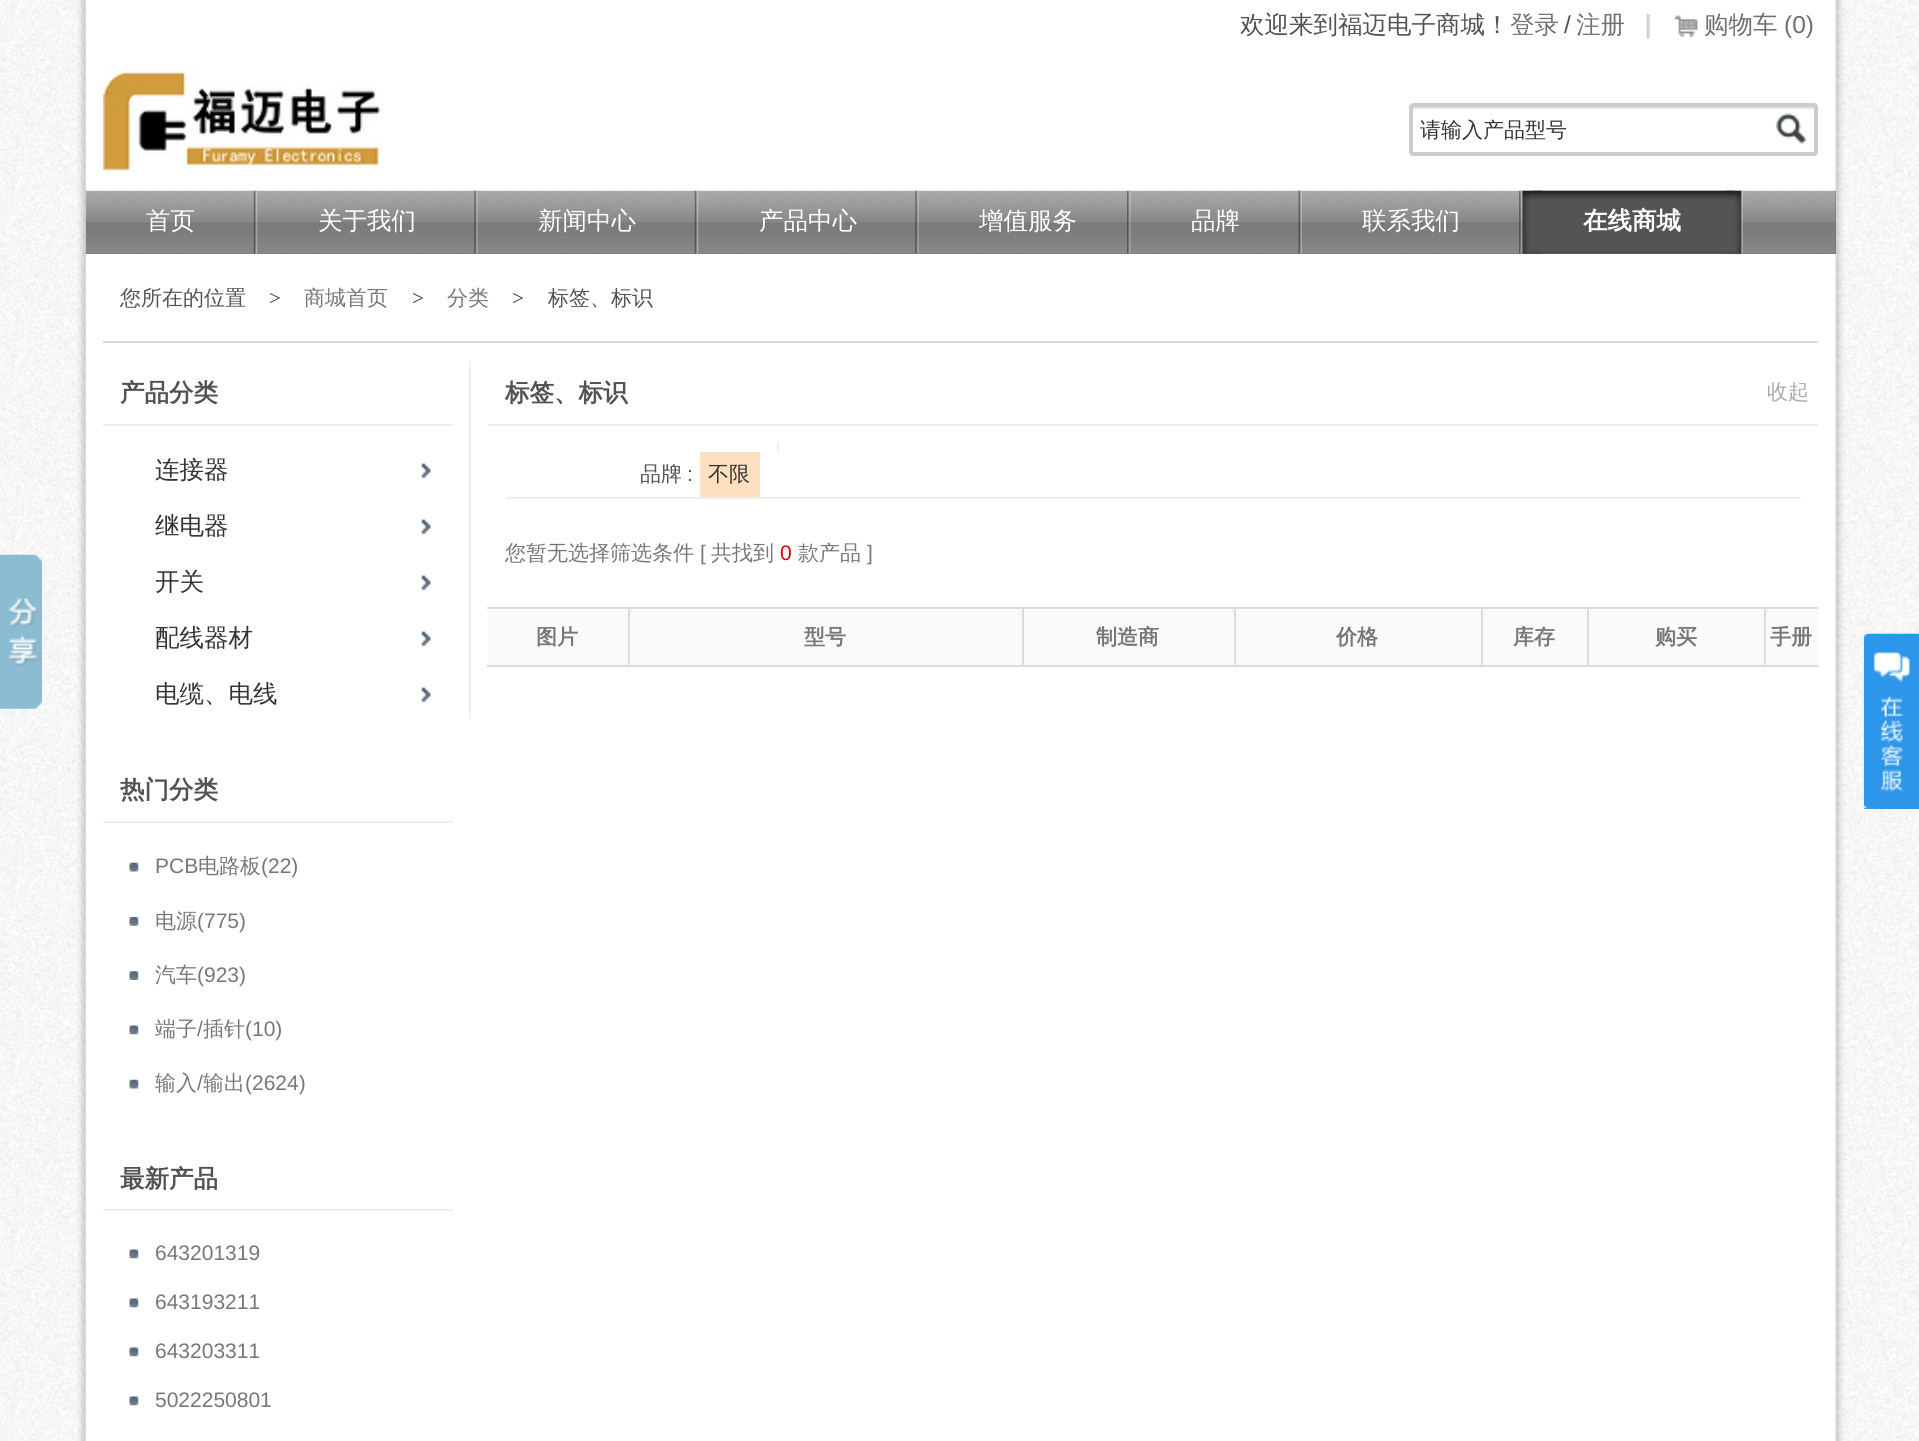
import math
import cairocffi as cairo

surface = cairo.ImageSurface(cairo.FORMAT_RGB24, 1919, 1441)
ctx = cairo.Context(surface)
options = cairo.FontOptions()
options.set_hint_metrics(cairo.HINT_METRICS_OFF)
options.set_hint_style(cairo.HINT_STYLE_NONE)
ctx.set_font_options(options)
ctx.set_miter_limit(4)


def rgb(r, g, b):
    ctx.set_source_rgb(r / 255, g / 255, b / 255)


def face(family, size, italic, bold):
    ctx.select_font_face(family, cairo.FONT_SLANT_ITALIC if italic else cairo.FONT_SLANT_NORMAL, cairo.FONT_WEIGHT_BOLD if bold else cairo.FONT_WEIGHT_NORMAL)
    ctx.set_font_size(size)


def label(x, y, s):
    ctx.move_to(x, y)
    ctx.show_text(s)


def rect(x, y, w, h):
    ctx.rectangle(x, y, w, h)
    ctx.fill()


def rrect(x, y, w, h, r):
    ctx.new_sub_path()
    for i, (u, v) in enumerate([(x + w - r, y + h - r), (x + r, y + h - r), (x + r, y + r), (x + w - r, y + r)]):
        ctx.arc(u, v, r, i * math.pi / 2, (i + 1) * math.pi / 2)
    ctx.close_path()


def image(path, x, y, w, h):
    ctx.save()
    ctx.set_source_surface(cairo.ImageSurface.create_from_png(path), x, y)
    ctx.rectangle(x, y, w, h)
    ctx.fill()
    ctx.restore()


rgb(255, 255, 255)
ctx.paint()
image('image0.png', 0, 0, 1919, 1441)
image('image1.png', 0, 554, 42, 155)
image('image2.png', 77, 0, 1768, 1441)
face('WenQuanYi Zen Hei Medium', 24.5, 0, 0)
rgb(82, 82, 82)
label(1240, 33, '欢迎来到福迈电子商城！')
rgb(112, 112, 112)
label(1510, 33, '登录')
face('Liberation Sans', 24.5, 0, 0)
rgb(82, 82, 82)
label(1564, 33, '/')
face('WenQuanYi Zen Hei Medium', 24.5, 0, 0)
rgb(112, 112, 112)
label(1576, 33, '注册')
image('image3.png', 1646, 14, 5, 25)
image('image4.png', 1674, 15, 24, 23)
label(1704, 33, '购物车')
face('Liberation Sans', 24.5, 0, 0)
label(1784, 33, '(0)')
image('image5.png', 103, 68, 280, 105)
rgb(230, 230, 230)
rect(1412, 107, 403, 2)
rrect(1411, 105, 405, 49, 2)
rgb(204, 204, 204)
ctx.set_line_width(4)
ctx.stroke()
face('WenQuanYi Zen Hei Medium', 21, 0, 0)
rgb(51, 51, 51)
label(1420, 137, '请输入产品型号')
image('image6.png', 1775, 113, 32, 31)
rgb(86, 86, 86)
rect(86, 191, 1750, 63)
image('image7.png', 85, 190, 1751, 64)
image('image8.png', 253, 190, 5, 64)
face('WenQuanYi Zen Hei Medium', 24.5, 0, 0)
rgb(255, 255, 255)
label(146, 229, '首页')
image('image9.png', 474, 190, 4, 64)
label(318, 229, '关于我们')
image('image10.png', 694, 190, 5, 64)
label(538, 229, '新闻中心')
image('image11.png', 915, 190, 4, 64)
label(759, 229, '产品中心')
image('image12.png', 1127, 190, 4, 64)
label(979, 229, '增值服务')
image('image13.png', 1298, 190, 4, 64)
label(1191, 229, '品牌')
image('image14.png', 1519, 190, 4, 64)
label(1362, 229, '联系我们')
image('image15.png', 1522, 190, 20, 64)
image('image16.png', 1725, 190, 18, 64)
image('image17.png', 1531, 190, 204, 64)
face('WenQuanYi Zen Hei', 24.5, 0, 1)
label(1583, 229, '在线商城')
rgb(220, 220, 220)
rect(103, 341, 1715, 2)
face('WenQuanYi Zen Hei Medium', 21, 0, 0)
rgb(82, 82, 82)
label(120, 305, '您所在的位置')
face('Liberation Serif', 21, 0, 0)
rgb(51, 51, 51)
label(269, 305, '>')
face('WenQuanYi Zen Hei Medium', 21, 0, 0)
rgb(119, 119, 119)
label(304, 305, '商城首页')
face('Liberation Serif', 21, 0, 0)
rgb(51, 51, 51)
label(412, 305, '>')
face('WenQuanYi Zen Hei Medium', 21, 0, 0)
rgb(119, 119, 119)
label(447, 305, '分类')
face('Liberation Serif', 21, 0, 0)
rgb(51, 51, 51)
label(512, 305, '>')
face('WenQuanYi Zen Hei Medium', 21, 0, 0)
rgb(82, 82, 82)
label(548, 305, '标签、标识')
rgb(238, 238, 238)
rect(103, 424, 350, 2)
face('WenQuanYi Zen Hei', 24.5, 0, 1)
rgb(82, 82, 82)
label(120, 401, '产品分类')
image('image18.png', 421, 463, 10, 16)
face('WenQuanYi Zen Hei Medium', 24.5, 0, 0)
rgb(51, 51, 51)
label(155, 478, '连接器')
image('image18.png', 421, 519, 10, 16)
label(155, 534, '继电器')
image('image18.png', 421, 575, 10, 16)
label(155, 590, '开关')
image('image18.png', 421, 631, 10, 16)
label(155, 646, '配线器材')
image('image18.png', 421, 687, 10, 16)
label(155, 702, '电缆、电线')
rgb(238, 238, 238)
rect(103, 821, 350, 2)
face('WenQuanYi Zen Hei', 24.5, 0, 1)
rgb(82, 82, 82)
label(120, 798, '热门分类')
image('image19.png', 129, 862, 10, 10)
face('Liberation Sans', 21, 0, 0)
rgb(119, 119, 119)
label(155, 873, 'PCB')
face('WenQuanYi Zen Hei Medium', 21, 0, 0)
label(198, 873, '电路板')
face('Liberation Sans', 21, 0, 0)
label(261, 873, '(22)')
image('image20.png', 129, 917, 10, 9)
face('WenQuanYi Zen Hei Medium', 21, 0, 0)
label(155, 928, '电源')
face('Liberation Sans', 21, 0, 0)
label(197, 928, '(775)')
image('image21.png', 129, 971, 10, 9)
face('WenQuanYi Zen Hei Medium', 21, 0, 0)
label(155, 982, '汽车')
face('Liberation Sans', 21, 0, 0)
label(197, 982, '(923)')
image('image22.png', 129, 1025, 10, 10)
face('WenQuanYi Zen Hei Medium', 21, 0, 0)
label(155, 1036, '端子')
face('Liberation Sans', 21, 0, 0)
label(197, 1036, '/')
face('WenQuanYi Zen Hei Medium', 21, 0, 0)
label(203, 1036, '插针')
face('Liberation Sans', 21, 0, 0)
label(245, 1036, '(10)')
image('image19.png', 129, 1079, 10, 10)
face('WenQuanYi Zen Hei Medium', 21, 0, 0)
label(155, 1090, '输入')
face('Liberation Sans', 21, 0, 0)
label(197, 1090, '/')
face('WenQuanYi Zen Hei Medium', 21, 0, 0)
label(203, 1090, '输出')
face('Liberation Sans', 21, 0, 0)
label(245, 1090, '(2624)')
rgb(238, 238, 238)
rect(103, 1209, 350, 2)
face('WenQuanYi Zen Hei', 24.5, 0, 1)
rgb(82, 82, 82)
label(120, 1187, '最新产品')
image('image22.png', 129, 1249, 10, 10)
face('Liberation Sans', 21, 0, 0)
rgb(119, 119, 119)
label(155, 1260, '643201319')
image('image22.png', 129, 1298, 10, 10)
label(155, 1309, '643193211')
image('image22.png', 129, 1347, 10, 10)
label(155, 1358, '643203311')
image('image22.png', 129, 1396, 10, 10)
label(155, 1407, '5022250801')
rgb(238, 238, 238)
rect(469, 361, 2, 358)
rect(488, 424, 1330, 2)
face('WenQuanYi Zen Hei', 24.5, 0, 1)
rgb(82, 82, 82)
label(505, 401, '标签、标识')
face('WenQuanYi Zen Hei Medium', 21, 0, 0)
rgb(170, 170, 170)
label(1767, 399, '收起')
rgb(238, 238, 238)
rect(506, 497, 1295, 2)
rect(777, 443, 2, 9)
rgb(82, 82, 82)
label(640, 481, '品牌')
face('Liberation Sans', 21, 0, 0)
label(687, 481, ':')
rgb(255, 225, 193)
rect(700, 452, 60, 45)
face('WenQuanYi Zen Hei Medium', 21, 0, 0)
rgb(51, 51, 51)
label(708, 481, '不限')
rgb(119, 119, 119)
label(505, 560, '您暂无选择筛选条件')
face('Liberation Sans', 21, 0, 0)
label(700, 560, '[')
face('WenQuanYi Zen Hei Medium', 21, 0, 0)
label(711, 560, '共找到')
face('Liberation Sans', 21, 0, 0)
rgb(204, 0, 0)
label(780, 560, '0')
face('WenQuanYi Zen Hei Medium', 21, 0, 0)
rgb(119, 119, 119)
label(798, 560, '款产品')
face('Liberation Sans', 21, 0, 0)
label(867, 560, ']')
rgb(250, 250, 250)
rect(488, 609, 140, 56)
rgb(220, 220, 220)
rect(487, 607, 1331, 2)
rect(1764, 665, 54, 2)
rect(1764, 607, 2, 60)
rect(1587, 665, 179, 2)
rect(1587, 607, 2, 60)
rect(1481, 665, 108, 2)
rect(1481, 607, 2, 60)
rect(1234, 665, 248, 2)
rect(1234, 607, 2, 60)
rect(1022, 665, 214, 2)
rect(1022, 607, 2, 60)
rect(628, 665, 396, 2)
rect(628, 607, 2, 60)
rect(487, 665, 143, 2)
face('WenQuanYi Zen Hei', 21, 0, 1)
rgb(119, 119, 119)
label(536, 644, '图片')
rgb(250, 250, 250)
rect(630, 609, 392, 56)
rgb(119, 119, 119)
label(804, 644, '型号')
rgb(250, 250, 250)
rect(1024, 609, 210, 56)
rgb(119, 119, 119)
label(1096, 644, '制造商')
rgb(250, 250, 250)
rect(1236, 609, 245, 56)
rgb(119, 119, 119)
label(1336, 644, '价格')
rgb(250, 250, 250)
rect(1483, 609, 104, 56)
rgb(119, 119, 119)
label(1513, 644, '库存')
rgb(250, 250, 250)
rect(1589, 609, 175, 56)
rgb(119, 119, 119)
label(1655, 644, '购买')
rgb(250, 250, 250)
rect(1766, 609, 52, 56)
rgb(119, 119, 119)
label(1770, 644, '手册')
rgb(45, 149, 234)
rect(1864, 808, 55, 1)
image('image23.png', 1863, 633, 56, 176)
surface.write_to_png('render.png')
